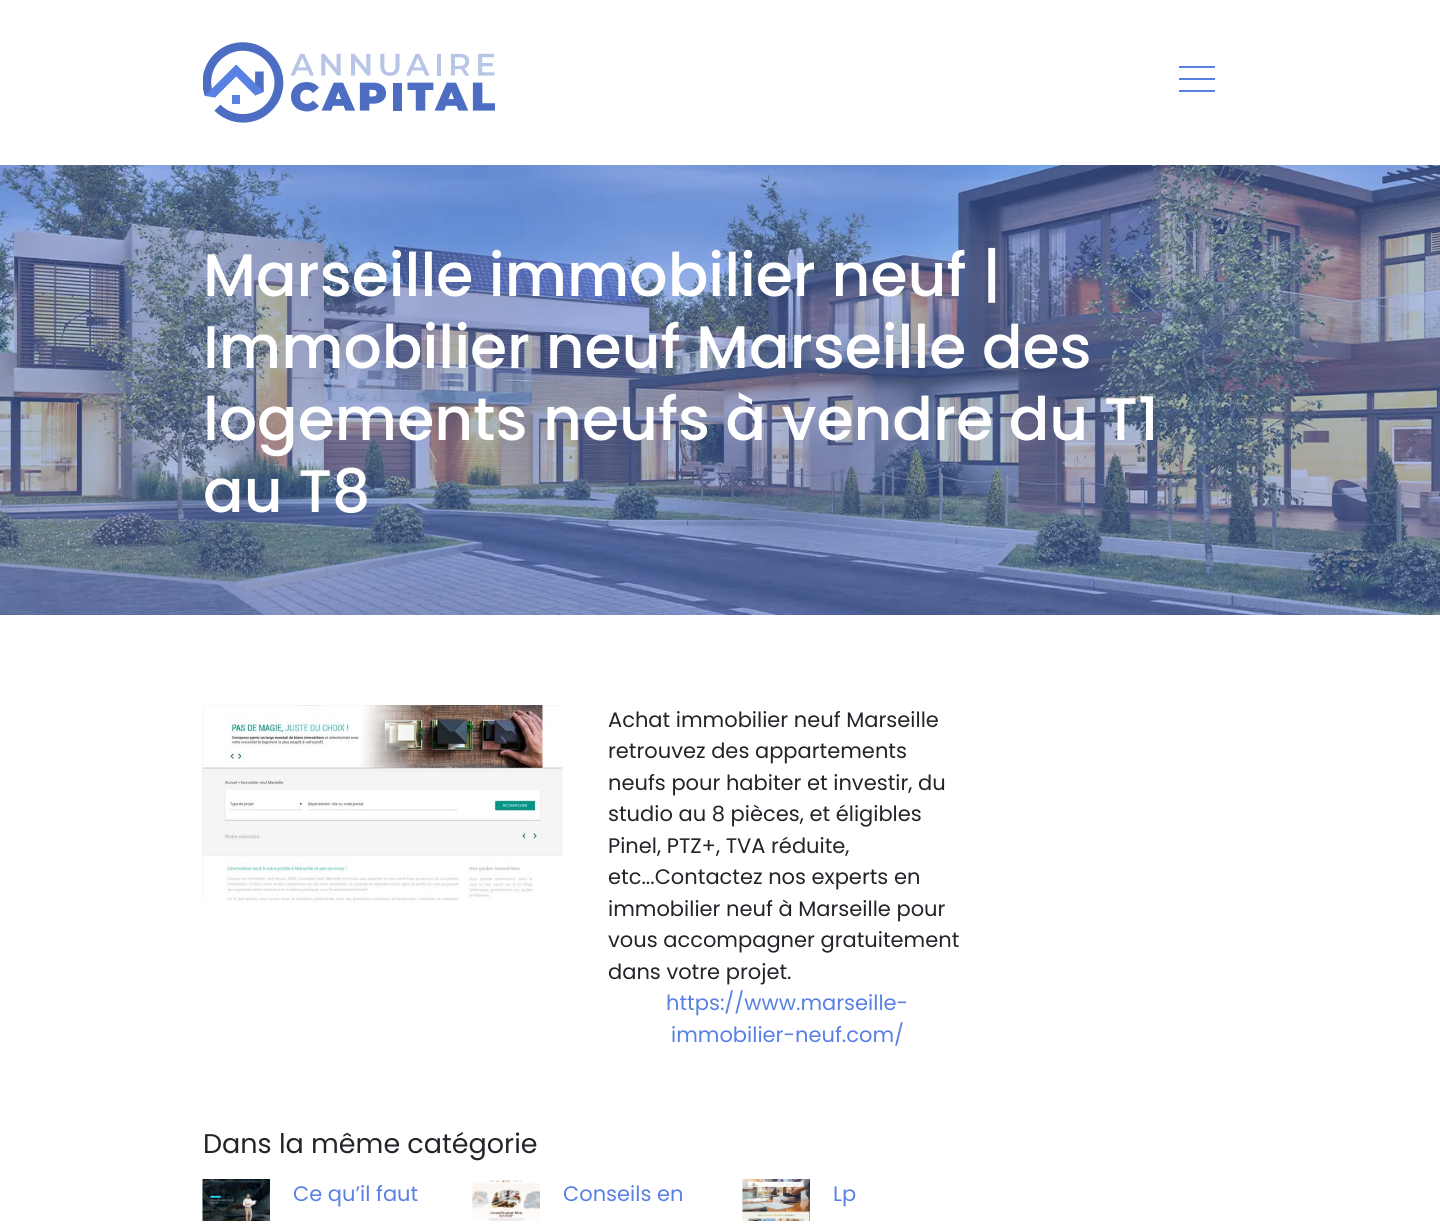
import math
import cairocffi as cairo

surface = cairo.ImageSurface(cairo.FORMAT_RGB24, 1440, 1225)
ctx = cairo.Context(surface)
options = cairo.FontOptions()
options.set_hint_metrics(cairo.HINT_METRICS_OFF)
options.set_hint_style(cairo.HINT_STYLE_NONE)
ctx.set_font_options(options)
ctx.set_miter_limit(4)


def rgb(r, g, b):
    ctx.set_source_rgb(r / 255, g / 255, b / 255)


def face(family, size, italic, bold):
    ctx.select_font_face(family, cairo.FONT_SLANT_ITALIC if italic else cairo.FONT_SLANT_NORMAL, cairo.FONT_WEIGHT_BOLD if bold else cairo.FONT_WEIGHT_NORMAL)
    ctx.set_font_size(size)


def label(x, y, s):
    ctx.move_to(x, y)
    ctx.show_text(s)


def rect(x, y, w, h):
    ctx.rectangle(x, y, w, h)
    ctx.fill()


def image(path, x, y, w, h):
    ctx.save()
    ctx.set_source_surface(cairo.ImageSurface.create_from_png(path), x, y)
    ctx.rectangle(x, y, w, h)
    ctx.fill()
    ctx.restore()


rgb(255, 255, 255)
ctx.paint()
image('image0.png', 203, 42, 292, 81)
rgb(89, 128, 227)
rect(1179, 66, 36, 2)
rect(1179, 78, 36, 2)
rect(1179, 90, 36, 2)
image('image1.png', 0, 165, 1440, 450)
face('Poppins Medium', 60, 0, 0)
rgb(255, 255, 255)
label(203, 296, 'Marseille immobilier neuf |')
label(203, 368, 'Immobilier neuf Marseille des')
label(203, 440, 'logements neufs à vendre du T1')
label(203, 512, 'au T8')
image('image2.png', 202, 705, 361, 197)
face('Poppins', 21, 0, 0)
rgb(33, 37, 41)
label(608, 727, 'Achat immobilier neuf Marseille')
label(608, 758, 'retrouvez des appartements')
label(608, 790, 'neufs pour habiter et investir, du')
label(608, 821, 'studio au 8 pièces, et éligibles')
label(608, 853, 'Pinel, PTZ+, TVA réduite,')
label(608, 884, 'etc...Contactez nos experts en')
label(608, 916, 'immobilier neuf à Marseille pour')
label(608, 947, 'vous accompagner gratuitement')
label(608, 979, 'dans votre projet.')
rgb(89, 128, 227)
label(666, 1010, 'https://www.marseille-')
label(671, 1042, 'immobilier-neuf.com/')
face('Poppins', 27, 0, 0)
rgb(33, 37, 41)
label(203, 1153, 'Dans la même catégorie')
image('image3.png', 202, 1179, 68, 42)
face('Poppins', 21, 0, 0)
rgb(89, 128, 227)
label(293, 1201, 'Ce qu’il faut')
image('image4.png', 472, 1179, 68, 42)
label(563, 1201, 'Conseils en')
image('image5.png', 742, 1179, 68, 42)
label(833, 1201, 'Lp')
surface.write_to_png('render.png')
